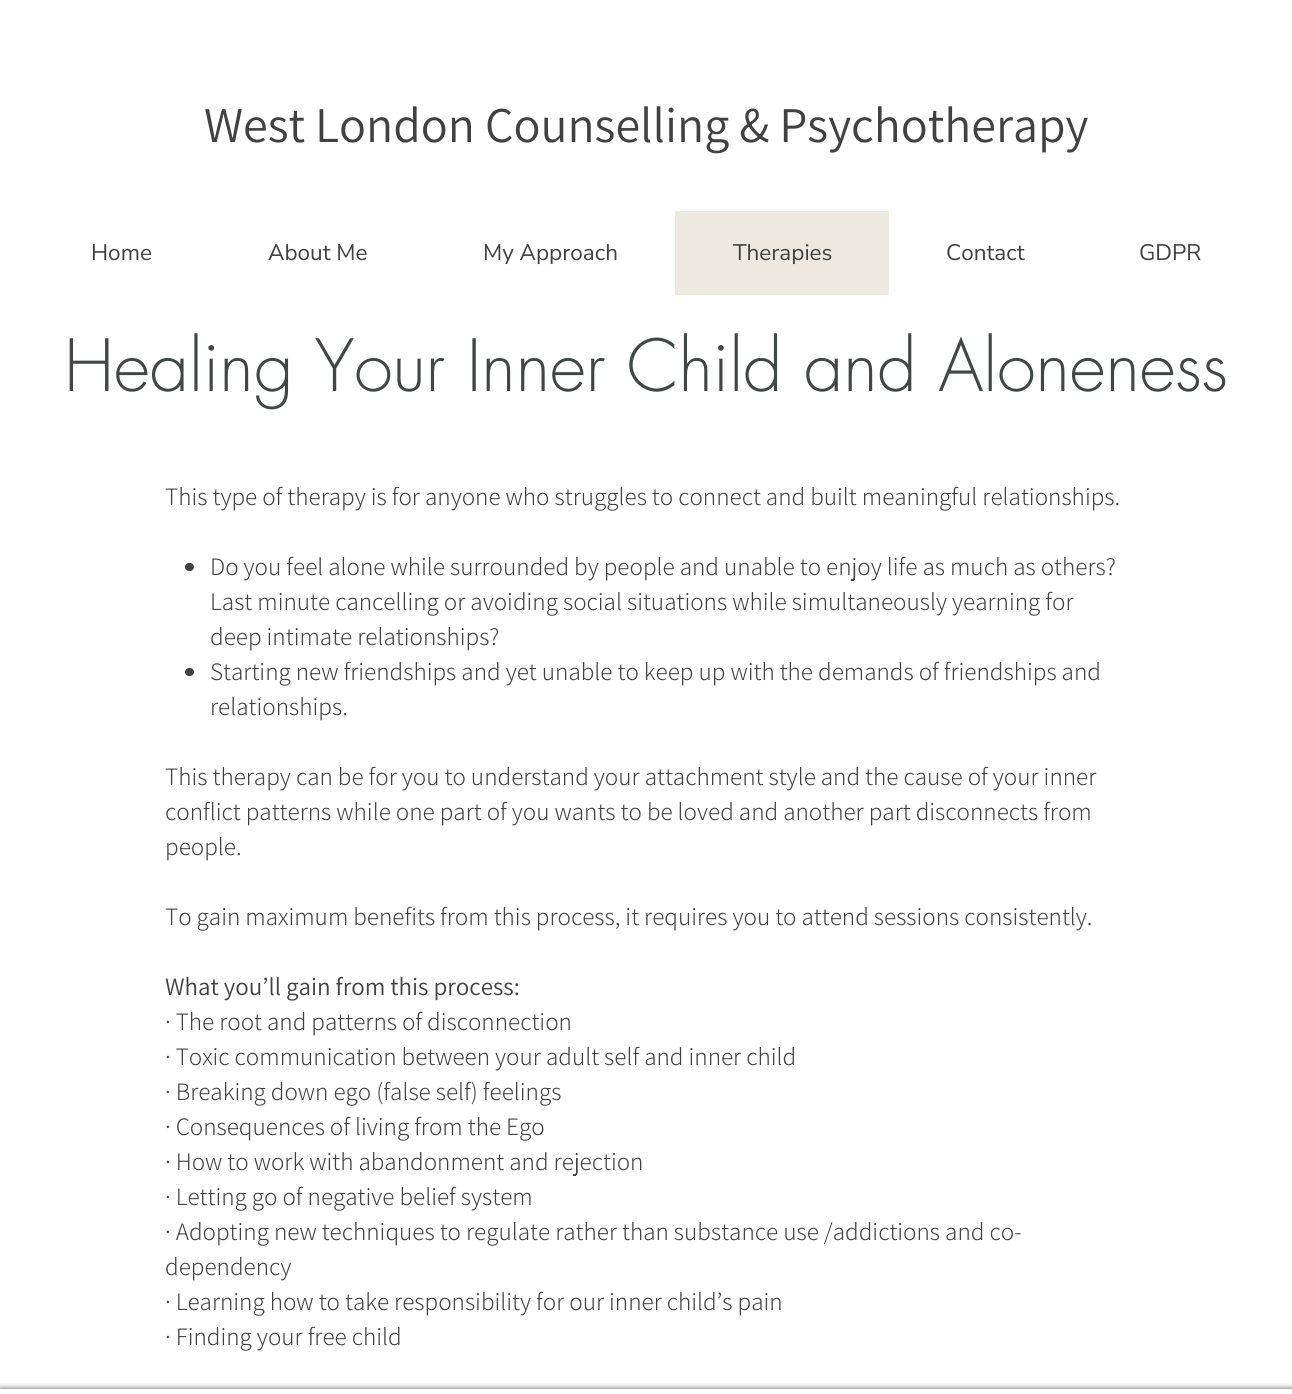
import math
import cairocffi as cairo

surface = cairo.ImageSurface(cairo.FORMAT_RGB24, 1292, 1394)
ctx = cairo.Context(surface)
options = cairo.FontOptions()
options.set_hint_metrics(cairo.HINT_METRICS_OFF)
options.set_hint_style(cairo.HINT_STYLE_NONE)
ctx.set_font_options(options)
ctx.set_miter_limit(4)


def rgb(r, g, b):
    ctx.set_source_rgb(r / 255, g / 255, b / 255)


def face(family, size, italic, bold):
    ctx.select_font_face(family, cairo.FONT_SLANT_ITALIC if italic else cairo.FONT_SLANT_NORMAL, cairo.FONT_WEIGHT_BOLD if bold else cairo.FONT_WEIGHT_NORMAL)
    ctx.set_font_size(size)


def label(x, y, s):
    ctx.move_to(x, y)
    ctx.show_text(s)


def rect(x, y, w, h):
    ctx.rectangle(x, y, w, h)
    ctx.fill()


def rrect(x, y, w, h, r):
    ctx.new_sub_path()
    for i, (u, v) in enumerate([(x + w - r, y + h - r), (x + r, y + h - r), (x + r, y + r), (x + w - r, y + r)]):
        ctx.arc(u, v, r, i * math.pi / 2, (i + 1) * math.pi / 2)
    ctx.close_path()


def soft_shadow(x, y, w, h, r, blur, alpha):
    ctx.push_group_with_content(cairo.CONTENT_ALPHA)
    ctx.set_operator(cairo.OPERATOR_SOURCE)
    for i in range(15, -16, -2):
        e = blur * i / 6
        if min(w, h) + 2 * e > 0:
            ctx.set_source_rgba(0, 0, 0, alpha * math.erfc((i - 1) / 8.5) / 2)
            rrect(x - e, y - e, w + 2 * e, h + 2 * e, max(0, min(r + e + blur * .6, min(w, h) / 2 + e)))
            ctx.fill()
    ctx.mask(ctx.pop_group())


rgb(255, 255, 255)
ctx.paint()
face('Assistant', 50, 0, 0)
rgb(65, 65, 65)
label(204, 142, 'West London Counselling & Psychotherapy')
face('Nunito Sans', 22.5, 0, 0)
label(91, 260, 'Home')
label(268, 260, 'About Me')
label(483, 260, 'My Approach')
rgb(237, 233, 225)
rect(675, 211, 214, 84)
rgb(65, 65, 65)
label(733, 260, 'Therapies')
label(946, 260, 'Contact')
label(1139, 260, 'GDPR')
face('futura Light', 70, 0, 0)
rgb(66, 71, 70)
label(64, 391, 'Healing Your Inner Child and Aloneness')
face('Assistant Light', 25, 0, 0)
rgb(65, 65, 65)
label(165, 505, 'This type of therapy is for anyone who struggles to connect and built meaningful relationships.')
rrect(185, 563, 9, 8, 4)
ctx.fill()
label(210, 575, 'Do you feel alone while surrounded by people and unable to enjoy life as much as others?')
label(210, 610, 'Last minute cancelling or avoiding social situations while simultaneously yearning for')
label(210, 645, 'deep intimate relationships?')
rrect(185, 668, 9, 8, 4)
ctx.fill()
label(210, 680, 'Starting new friendships and yet unable to keep up with the demands of friendships and')
label(210, 715, 'relationships.')
label(165, 785, 'This therapy can be for you to understand your attachment style and the cause of your inner')
label(165, 820, 'conflict patterns while one part of you wants to be loved and another part disconnects from')
label(165, 855, 'people.')
label(165, 925, 'To gain maximum benefits from this process, it requires you to attend sessions consistently.')
face('Assistant', 25, 0, 0)
label(165, 995, 'What you’ll gain from this process:')
face('Assistant Light', 25, 0, 0)
label(165, 1030, '· The root and patterns of disconnection')
label(165, 1065, '· Toxic communication between your adult self and inner child')
label(165, 1100, '· Breaking down ego (false self) feelings')
label(165, 1135, '· Consequences of living from the Ego')
label(165, 1170, '· How to work with abandonment and rejection')
label(165, 1205, '· Letting go of negative belief system')
label(165, 1240, '· Adopting new techniques to regulate rather than substance use /addictions and co-')
label(165, 1275, 'dependency')
label(165, 1310, '· Learning how to take responsibility for our inner child’s pain')
label(165, 1345, '· Finding your free child')
ctx.save()
ctx.rectangle(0, 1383, 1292, 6)
ctx.clip()
rgb(0, 0, 0)
soft_shadow(0, 1389, 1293, 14, 0, 3, 0.7)
ctx.restore()
surface.write_to_png('render.png')
